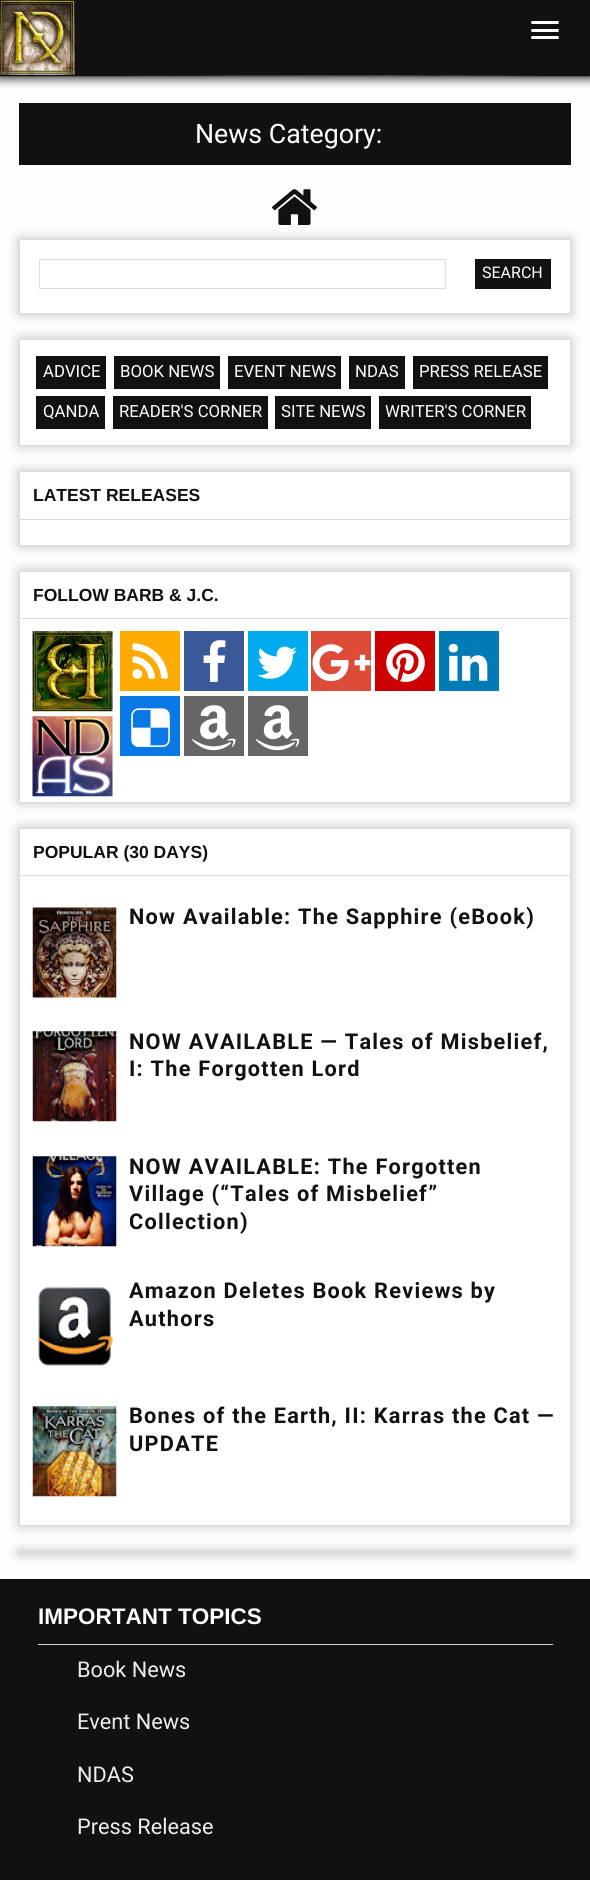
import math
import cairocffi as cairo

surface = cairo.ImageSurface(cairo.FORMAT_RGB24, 590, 1880)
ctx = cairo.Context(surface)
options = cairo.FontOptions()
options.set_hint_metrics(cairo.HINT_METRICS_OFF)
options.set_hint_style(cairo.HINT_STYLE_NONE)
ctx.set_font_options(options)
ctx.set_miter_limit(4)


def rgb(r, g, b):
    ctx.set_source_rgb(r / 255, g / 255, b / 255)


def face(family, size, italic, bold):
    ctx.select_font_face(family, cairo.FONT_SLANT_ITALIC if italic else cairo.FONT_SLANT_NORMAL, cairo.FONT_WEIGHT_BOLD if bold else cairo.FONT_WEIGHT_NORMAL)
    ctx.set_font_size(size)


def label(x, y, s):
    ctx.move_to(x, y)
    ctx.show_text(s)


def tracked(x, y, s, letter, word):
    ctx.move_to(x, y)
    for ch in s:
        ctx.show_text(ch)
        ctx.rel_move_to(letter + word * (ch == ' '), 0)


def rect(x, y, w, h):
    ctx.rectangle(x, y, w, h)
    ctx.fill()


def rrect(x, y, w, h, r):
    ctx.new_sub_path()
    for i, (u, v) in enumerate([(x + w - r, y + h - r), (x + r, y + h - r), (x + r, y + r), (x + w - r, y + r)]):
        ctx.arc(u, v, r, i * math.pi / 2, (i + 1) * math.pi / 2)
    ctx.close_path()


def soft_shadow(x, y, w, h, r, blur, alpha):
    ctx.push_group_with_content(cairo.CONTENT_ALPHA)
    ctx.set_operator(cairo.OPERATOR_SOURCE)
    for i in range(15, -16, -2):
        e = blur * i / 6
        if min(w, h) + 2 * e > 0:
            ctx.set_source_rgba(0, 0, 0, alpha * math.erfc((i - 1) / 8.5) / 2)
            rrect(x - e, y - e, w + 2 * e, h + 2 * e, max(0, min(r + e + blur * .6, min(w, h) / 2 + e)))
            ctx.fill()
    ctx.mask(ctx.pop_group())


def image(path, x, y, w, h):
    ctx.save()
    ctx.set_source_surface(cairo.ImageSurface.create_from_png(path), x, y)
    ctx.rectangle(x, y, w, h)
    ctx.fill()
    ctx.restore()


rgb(254, 253, 255)
ctx.paint()
rgb(0, 0, 0)
soft_shadow(0, 75, 590, 1, 0, 6, 0.75)
image('image1.png', 0, 75, 590, 2)
soft_shadow(0, 0, 590, 75, 0, 6, 0.75)
rgb(17, 17, 17)
rect(75, 0, 515, 75)
image('image0.png', 0, 0, 75, 75)
rgb(255, 255, 255)
rrect(531, 21, 28, 3, 1.5)
ctx.fill()
rrect(531, 29, 28, 3, 1.5)
ctx.fill()
rrect(531, 36, 28, 3, 1.5)
ctx.fill()
rgb(17, 17, 17)
rect(19, 103, 552, 62)
face('Roboto', 26.75, 0, 0)
rgb(255, 255, 255)
label(195, 143, 'News Category:')
image('image2.png', 272, 189, 45, 36)
rgb(0, 0, 0)
soft_shadow(19, 239, 552, 75, 0, 6, 0.25)
rgb(255, 255, 255)
ctx.rectangle(19.5, 239.5, 551, 74)
ctx.fill_preserve()
rgb(221, 221, 221)
ctx.set_line_width(1)
ctx.stroke()
ctx.rectangle(39.5, 259.5, 406, 29)
ctx.stroke()
rgb(17, 17, 17)
rect(475, 259, 76, 30)
face('Roboto', 16, 0, 0)
rgb(255, 255, 255)
label(482, 278, 'SEARCH')
rgb(0, 0, 0)
soft_shadow(19, 339, 552, 107, 0, 6, 0.25)
rgb(255, 255, 255)
ctx.rectangle(19.5, 339.5, 551, 106)
ctx.fill_preserve()
rgb(221, 221, 221)
ctx.stroke()
rgb(17, 17, 17)
rect(36, 356, 70, 33)
face('Roboto', 16.75, 0, 0)
rgb(255, 255, 255)
label(43, 377, 'ADVICE')
rgb(17, 17, 17)
rect(114, 356, 106, 33)
rgb(255, 255, 255)
label(120, 377, 'BOOK NEWS')
rgb(17, 17, 17)
rect(228, 356, 113, 33)
rgb(255, 255, 255)
label(234, 377, 'EVENT NEWS')
rgb(17, 17, 17)
rect(349, 356, 56, 33)
rgb(255, 255, 255)
label(355, 377, 'NDAS')
rgb(17, 17, 17)
rect(413, 356, 135, 33)
rgb(255, 255, 255)
label(419, 377, 'PRESS RELEASE')
rgb(17, 17, 17)
rect(36, 396, 69, 33)
rgb(255, 255, 255)
label(43, 417, 'QANDA')
rgb(17, 17, 17)
rect(113, 396, 155, 33)
rgb(255, 255, 255)
label(119, 417, 'READER\'S CORNER')
rgb(17, 17, 17)
rect(275, 396, 96, 33)
rgb(255, 255, 255)
label(281, 417, 'SITE NEWS')
rgb(17, 17, 17)
rect(379, 396, 152, 33)
rgb(255, 255, 255)
label(385, 417, 'WRITER\'S CORNER')
rgb(0, 0, 0)
soft_shadow(19, 471, 552, 75, 0, 6, 0.25)
rgb(255, 255, 255)
ctx.rectangle(19.5, 471.5, 551, 74)
ctx.fill_preserve()
rgb(221, 221, 221)
ctx.stroke()
rect(20, 519, 550, 1)
face('Liberation Sans', 17.5, 0, 1)
rgb(17, 17, 17)
label(33, 501, 'LATEST RELEASES')
rgb(0, 0, 0)
soft_shadow(19, 571, 552, 232, 0, 6, 0.25)
rgb(255, 255, 255)
ctx.rectangle(19.5, 571.5, 551, 231)
ctx.fill_preserve()
rgb(221, 221, 221)
ctx.stroke()
rect(20, 618, 550, 1)
rgb(17, 17, 17)
label(33, 601, 'FOLLOW BARB & J.C.')
image('image3.png', 32, 631, 81, 81)
image('image4.png', 32, 716, 81, 81)
rgb(255, 170, 0)
rect(120, 631, 60, 60)
image('image5.png', 132, 643, 36, 36)
rgb(59, 89, 152)
rect(184, 631, 60, 60)
image('image6.png', 203, 640, 23, 42)
rgb(0, 172, 237)
rect(248, 631, 60, 60)
image('image7.png', 257, 646, 40, 33)
rgb(221, 75, 57)
rect(311, 631, 60, 60)
image('image8.png', 312, 644, 59, 38)
rgb(204, 0, 0)
rect(375, 631, 60, 60)
image('image9.png', 386, 643, 39, 39)
rgb(0, 123, 182)
rect(439, 631, 60, 60)
image('image10.png', 448, 643, 40, 38)
rgb(11, 121, 229)
rect(120, 696, 60, 60)
image('image11.png', 131, 708, 39, 39)
rgb(102, 102, 102)
rect(184, 696, 60, 60)
image('image12.png', 192, 705, 44, 46)
rect(248, 696, 60, 60)
image('image13.png', 255, 705, 45, 46)
rgb(0, 0, 0)
soft_shadow(19, 828, 552, 698, 0, 6, 0.25)
rgb(255, 255, 255)
ctx.rectangle(19.5, 828.5, 551, 697)
ctx.fill_preserve()
rgb(221, 221, 221)
ctx.stroke()
rect(20, 875, 550, 1)
rgb(17, 17, 17)
label(33, 858, 'POPULAR (30 DAYS)')
image('image14.png', 32, 907, 85, 91)
face('Roboto', 21.7, 0, 1)
tracked(129, 924, 'Now Available: The Sapphire (eBook)', 1.25, 0)
image('image15.png', 32, 1031, 85, 91)
tracked(129, 1049, 'NOW AVAILABLE — Tales of Misbelief,', 1.25, 0)
tracked(129, 1076, 'I: The Forgotten Lord', 1.25, 0)
image('image16.png', 32, 1156, 85, 91)
tracked(129, 1174, 'NOW AVAILABLE: The Forgotten', 1.25, 0)
tracked(129, 1201, 'Village (“Tales of Misbelief”', 1.25, 0)
tracked(129, 1229, 'Collection)', 1.25, 0)
image('image17.png', 37, 1287, 76, 80)
tracked(129, 1298, 'Amazon Deletes Book Reviews by', 1.25, 0)
tracked(129, 1326, 'Authors', 1.25, 0)
image('image18.png', 32, 1406, 85, 91)
tracked(129, 1423, 'Bones of the Earth, II: Karras the Cat —', 1.25, 0)
tracked(129, 1451, 'UPDATE', 1.25, 0)
rgb(0, 0, 0)
soft_shadow(19, 1551, 552, 3, 0, 6, 0.25)
rgb(221, 221, 221)
rect(19, 1551, 552, 3)
rgb(17, 17, 17)
rect(0, 1579, 590, 301)
rgb(211, 211, 211)
rect(38, 1644, 515, 1)
face('Liberation Sans', 22.5, 0, 1)
rgb(255, 255, 255)
label(38, 1624, 'IMPORTANT TOPICS')
face('Roboto', 21.7, 0, 0)
rgb(238, 238, 238)
label(77, 1677, 'Book News')
label(77, 1729, 'Event News')
label(77, 1782, 'NDAS')
label(77, 1834, 'Press Release')
surface.write_to_png('render.png')
